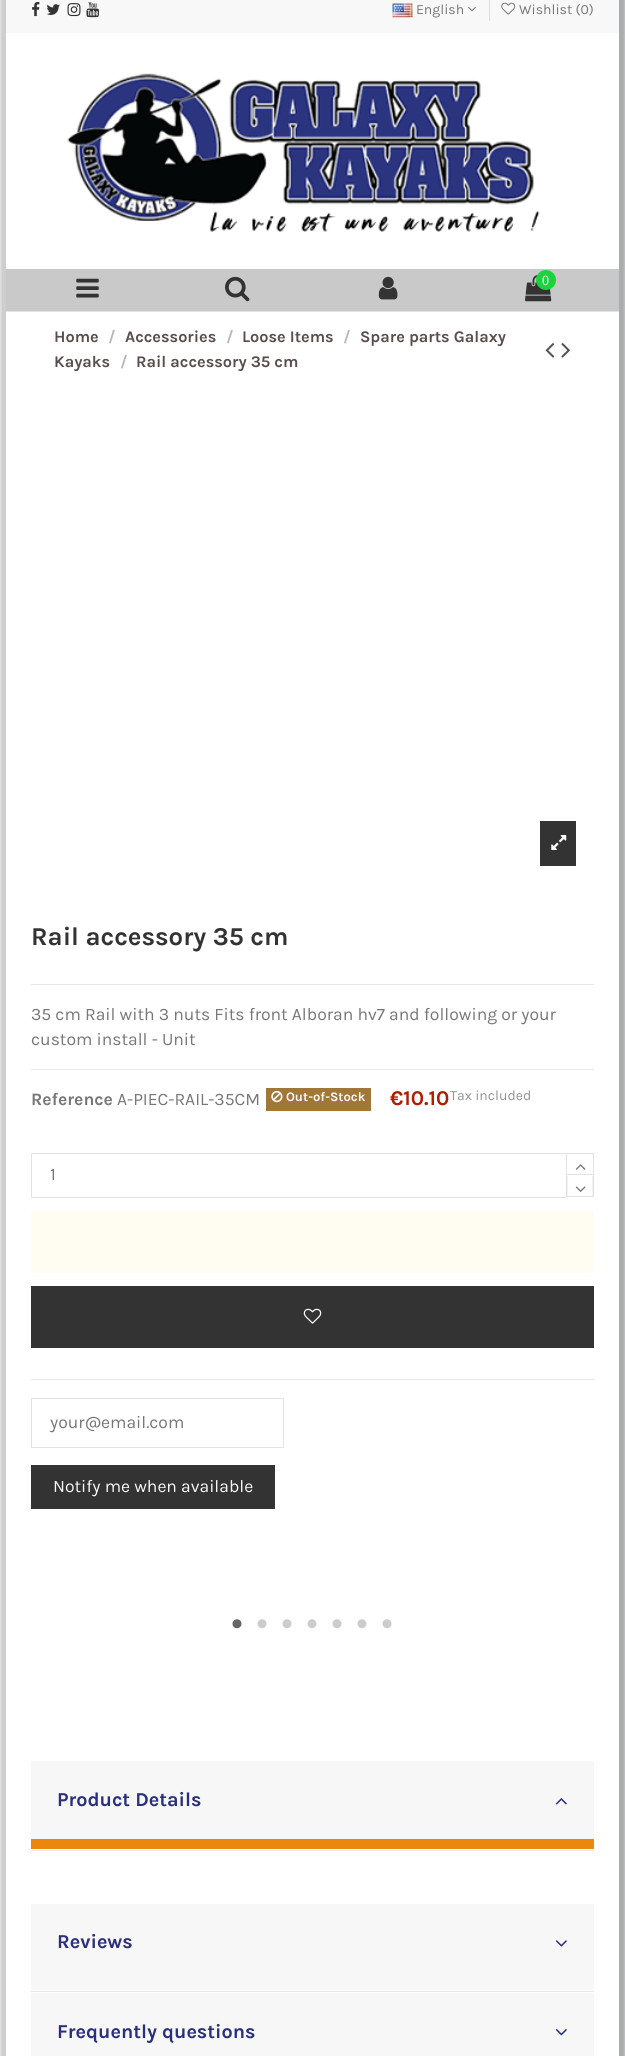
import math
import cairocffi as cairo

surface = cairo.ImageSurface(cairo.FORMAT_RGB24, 625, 2056)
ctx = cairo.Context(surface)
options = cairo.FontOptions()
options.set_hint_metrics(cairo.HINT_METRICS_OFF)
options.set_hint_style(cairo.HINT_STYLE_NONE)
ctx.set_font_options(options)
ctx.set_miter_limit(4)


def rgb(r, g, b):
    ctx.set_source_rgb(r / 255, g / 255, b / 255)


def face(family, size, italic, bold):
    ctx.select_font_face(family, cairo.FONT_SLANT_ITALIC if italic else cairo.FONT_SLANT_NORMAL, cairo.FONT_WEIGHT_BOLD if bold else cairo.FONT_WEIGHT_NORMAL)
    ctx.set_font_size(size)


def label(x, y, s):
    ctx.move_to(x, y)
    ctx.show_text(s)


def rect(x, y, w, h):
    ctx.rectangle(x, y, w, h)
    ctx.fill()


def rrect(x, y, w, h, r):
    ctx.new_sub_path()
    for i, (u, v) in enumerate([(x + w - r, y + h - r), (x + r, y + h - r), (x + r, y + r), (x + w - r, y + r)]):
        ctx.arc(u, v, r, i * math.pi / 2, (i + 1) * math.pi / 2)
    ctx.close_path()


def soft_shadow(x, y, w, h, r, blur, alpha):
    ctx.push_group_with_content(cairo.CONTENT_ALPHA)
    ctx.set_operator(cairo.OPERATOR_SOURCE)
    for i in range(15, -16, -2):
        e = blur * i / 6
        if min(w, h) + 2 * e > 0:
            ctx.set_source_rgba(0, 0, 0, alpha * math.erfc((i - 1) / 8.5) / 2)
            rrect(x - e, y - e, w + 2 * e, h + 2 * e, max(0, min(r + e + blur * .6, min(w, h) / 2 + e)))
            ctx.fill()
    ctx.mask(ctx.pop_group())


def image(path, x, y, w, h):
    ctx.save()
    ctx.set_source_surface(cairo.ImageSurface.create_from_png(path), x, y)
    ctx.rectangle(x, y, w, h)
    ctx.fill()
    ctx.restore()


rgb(255, 255, 255)
ctx.paint()
rgb(122, 123, 125)
soft_shadow(9, -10, 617, 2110, 0, 14.5, 1)
rgb(248, 248, 248)
rect(6, 0, 613, 33)
image('image0.png', 32, 2, 8, 15)
image('image1.png', 46, 4, 14, 11)
image('image2.png', 67, 3, 14, 14)
image('image3.png', 86, 2, 13, 16)
image('image4.png', 392, 3, 21, 15)
face('Karla', 14, 0, 0)
rgb(119, 119, 119)
label(416, 14, 'English')
image('image5.png', 468, 6, 8, 6)
rgb(222, 222, 222)
rect(489, 0, 1, 21)
image('image6.png', 501, 2, 15, 13)
rgb(119, 119, 119)
label(519, 14, 'Wishlist (0)')
rgb(255, 255, 255)
rect(6, 33, 613, 2023)
rgb(227, 227, 227)
rect(6, 311, 613, 1)
image('image7.png', 67, 73, 473, 159)
rgb(201, 201, 201)
rect(6, 269, 613, 42)
image('image8.png', 76, 278, 23, 20)
image('image9.png', 225, 276, 25, 26)
image('image10.png', 378, 276, 20, 24)
image('image11.png', 525, 275, 27, 27)
rgb(27, 211, 63)
ctx.arc(546, 280, 10, 0, 2 * math.pi)
ctx.fill()
face('Liberation Serif', 14, 0, 0)
rgb(255, 255, 255)
label(542, 285, '0')
face('Karla', 16.25, 0, 1)
rgb(90, 77, 77)
label(54, 342, 'Home')
rgb(189, 184, 184)
label(108, 342, '/')
rgb(90, 77, 77)
label(125, 342, 'Accessories')
rgb(189, 184, 184)
label(226, 342, '/')
rgb(90, 77, 77)
label(242, 342, 'Loose Items')
rgb(189, 184, 184)
label(343, 342, '/')
rgb(90, 77, 77)
label(360, 342, 'Spare parts Galaxy')
label(54, 367, 'Kayaks')
rgb(189, 184, 184)
label(120, 367, '/')
rgb(90, 77, 77)
label(136, 367, 'Rail accessory 35 cm')
image('image12.png', 545, 343, 10, 15)
image('image13.png', 561, 343, 9, 15)
rgb(51, 51, 51)
rect(540, 821, 36, 45)
image('image14.png', 551, 835, 16, 15)
rgb(232, 232, 232)
rect(31, 984, 563, 1)
face('Karla', 25.75, 0, 1)
rgb(51, 51, 51)
label(31, 945, 'Rail accessory 35 cm')
face('Karla', 17.5, 0, 0)
rgb(119, 119, 119)
label(31, 1020, '35 cm Rail with 3 nuts Fits front Alboran hv7 and following or your')
label(31, 1045, 'custom install - Unit')
rgb(232, 232, 232)
rect(31, 1069, 563, 1)
face('Karla', 17.5, 0, 1)
rgb(119, 119, 119)
label(31, 1105, 'Reference')
face('Karla', 17.5, 0, 0)
label(117, 1105, 'A-PIEC-RAIL-35CM')
rgb(161, 119, 56)
rect(266, 1088, 105, 23)
image('image15.png', 271, 1090, 12, 13)
face('Karla', 13, 0, 1)
rgb(255, 247, 247)
label(286, 1101, 'Out-of-Stock')
face('Karla', 21, 0, 1)
rgb(173, 31, 0)
label(390, 1105, '€10.10')
face('Karla', 14, 0, 0)
rgb(146, 146, 146)
label(450, 1100, 'Tax included')
ctx.rectangle(31.5, 1153.5, 536, 44)
rgb(227, 227, 227)
ctx.set_line_width(1)
ctx.stroke()
face('Karla', 17.5, 0, 0)
rgb(119, 119, 119)
label(50, 1180, '1')
rgb(255, 255, 255)
rect(567, 1154, 1, 20)
ctx.rectangle(566.5, 1153.5, 27, 21)
rgb(227, 227, 227)
ctx.stroke()
image('image16.png', 575, 1164, 11, 6)
rgb(255, 255, 255)
rect(566, 1175, 2, 23)
rgb(227, 227, 227)
ctx.new_path()
ctx.move_to(594, 1175)
ctx.line_to(594, 1197.5)
ctx.line_to(592.5, 1196)
ctx.line_to(592.5, 1176)
ctx.close_path()
ctx.fill()
rect(566, 1196, 28, 1)
ctx.new_path()
ctx.move_to(566, 1197.5)
ctx.line_to(566, 1175)
ctx.line_to(567.5, 1176)
ctx.line_to(567.5, 1196)
ctx.close_path()
ctx.fill()
image('image17.png', 575, 1186, 11, 6)
rgb(255, 252, 242)
rect(31, 1211, 563, 62)
rgb(51, 51, 51)
rect(31, 1286, 563, 62)
image('image18.png', 303, 1308, 19, 16)
rgb(232, 232, 232)
rect(31, 1379, 563, 1)
ctx.rectangle(31.5, 1398.5, 252, 49)
rgb(227, 227, 227)
ctx.stroke()
rgb(119, 119, 119)
label(50, 1428, 'your@email.com')
rgb(51, 51, 51)
rect(31, 1465, 244, 44)
rgb(248, 248, 248)
label(53, 1492, 'Notify me when available')
image('image19.png', 232, 1619, 10, 10)
image('image20.png', 257, 1619, 10, 10)
image('image20.png', 282, 1619, 10, 10)
image('image20.png', 307, 1619, 10, 10)
image('image20.png', 332, 1619, 10, 10)
image('image20.png', 357, 1619, 10, 10)
image('image20.png', 382, 1619, 10, 10)
rgb(232, 232, 232)
rect(31, 1850, 563, 1)
rgb(247, 247, 247)
rect(31, 1761, 563, 78)
rgb(235, 134, 15)
rect(31, 1839, 563, 10)
face('Karla', 19.75, 0, 1)
rgb(42, 47, 125)
label(57, 1806, 'Product Details')
image('image21.png', 555, 1798, 12, 7)
rgb(232, 232, 232)
rect(31, 1991, 563, 1)
rgb(247, 247, 247)
rect(31, 1904, 563, 86)
rgb(42, 47, 125)
label(57, 1948, 'Reviews')
image('image22.png', 555, 1940, 12, 7)
rgb(247, 247, 247)
rect(31, 1993, 563, 63)
rgb(42, 47, 125)
label(57, 2038, 'Frequently questions')
image('image23.png', 555, 2029, 12, 7)
surface.write_to_png('render.png')
